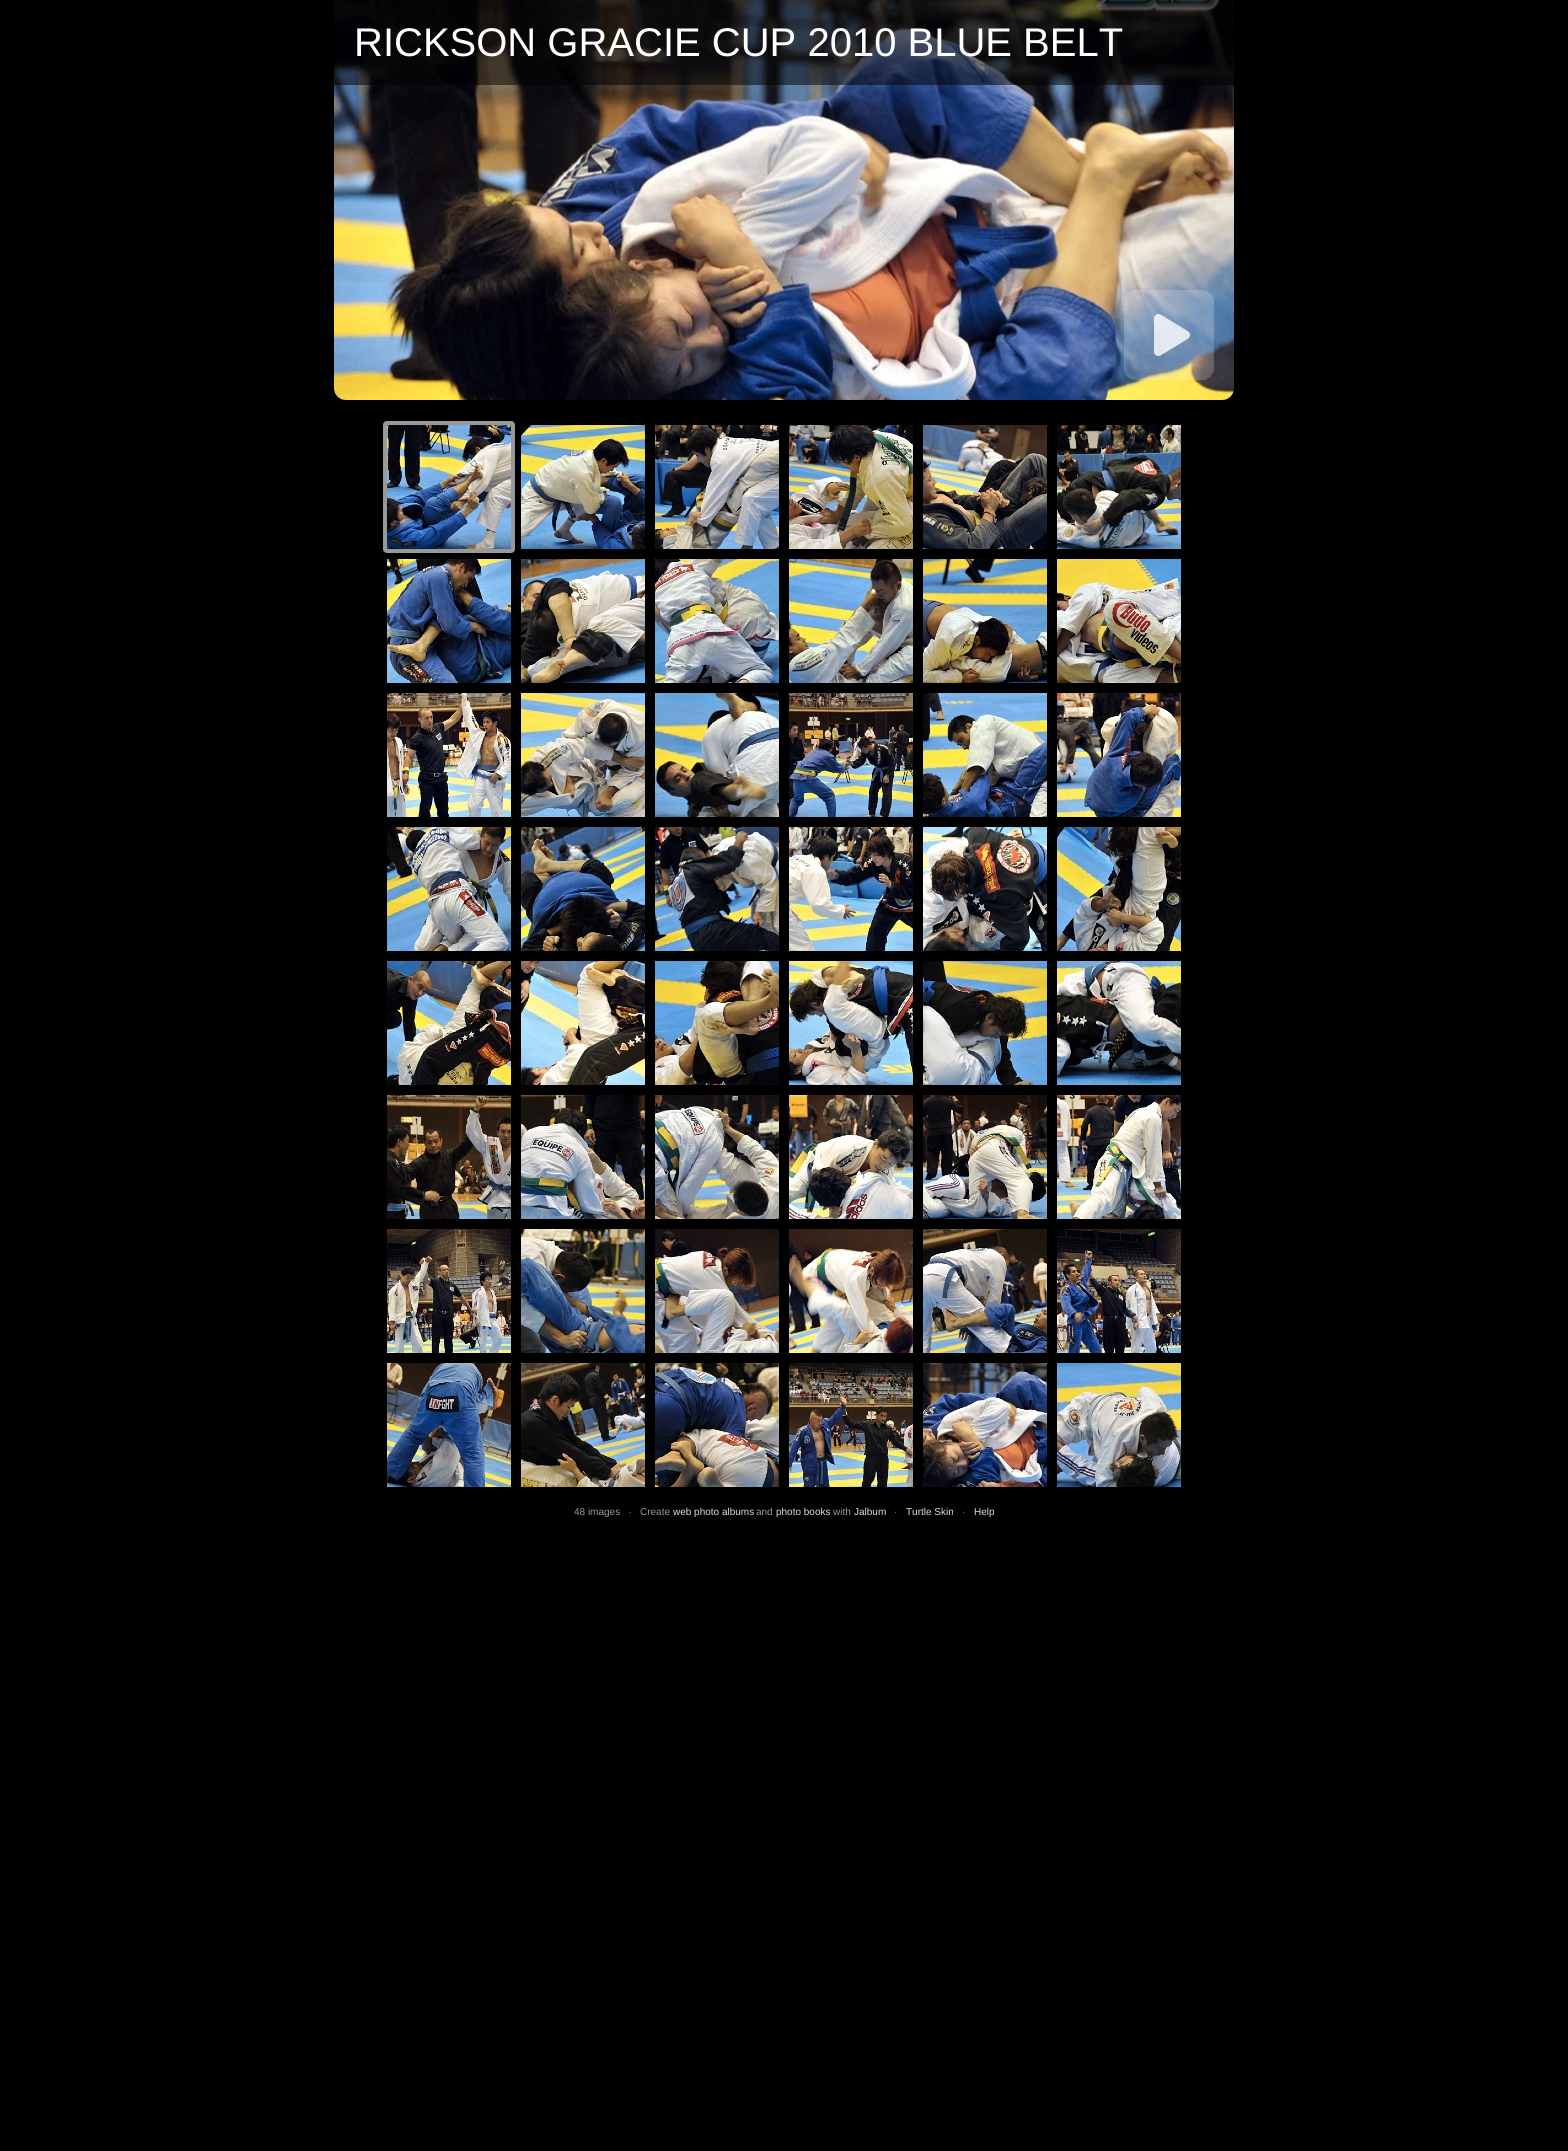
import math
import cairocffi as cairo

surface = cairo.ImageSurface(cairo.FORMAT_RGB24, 1568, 2151)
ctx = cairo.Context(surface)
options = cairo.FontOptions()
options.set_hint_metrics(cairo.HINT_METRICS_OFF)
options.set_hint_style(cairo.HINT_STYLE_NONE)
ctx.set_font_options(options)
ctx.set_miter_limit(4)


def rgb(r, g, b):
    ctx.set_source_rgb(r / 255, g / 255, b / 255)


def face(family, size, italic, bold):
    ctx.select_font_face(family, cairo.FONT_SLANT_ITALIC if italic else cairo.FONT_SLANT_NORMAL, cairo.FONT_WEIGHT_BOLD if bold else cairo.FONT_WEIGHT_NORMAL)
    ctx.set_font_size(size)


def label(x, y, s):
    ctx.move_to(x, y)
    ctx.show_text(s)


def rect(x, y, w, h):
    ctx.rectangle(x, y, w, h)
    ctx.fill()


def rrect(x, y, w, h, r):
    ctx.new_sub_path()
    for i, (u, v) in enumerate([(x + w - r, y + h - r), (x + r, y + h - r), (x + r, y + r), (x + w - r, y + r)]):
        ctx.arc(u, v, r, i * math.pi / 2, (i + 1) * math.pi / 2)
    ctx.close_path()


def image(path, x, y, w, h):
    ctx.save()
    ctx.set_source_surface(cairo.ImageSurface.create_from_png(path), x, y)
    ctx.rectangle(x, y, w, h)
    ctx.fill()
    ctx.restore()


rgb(0, 0, 0)
ctx.paint()
image('image0.png', 334, 0, 900, 400)
ctx.set_source_rgba(0, 0, 0, 0.52)
rect(334, 0, 900, 85)
face('Liberation Sans', 40, 0, 0)
rgb(255, 255, 255)
label(354, 56, 'RICKSON GRACIE CUP 2010 BLUE BELT')
image('image1.png', 1124, 290, 90, 90)
rgb(153, 153, 153)
rrect(383, 421, 132, 132, 4)
ctx.fill()
image('image2.png', 387, 425, 124, 124)
image('image3.png', 521, 425, 124, 124)
image('image4.png', 655, 425, 124, 124)
image('image5.png', 789, 425, 124, 124)
image('image6.png', 923, 425, 124, 124)
image('image7.png', 1057, 425, 124, 124)
image('image8.png', 387, 559, 124, 124)
image('image9.png', 521, 559, 124, 124)
image('image10.png', 655, 559, 124, 124)
image('image11.png', 789, 559, 124, 124)
image('image12.png', 923, 559, 124, 124)
image('image13.png', 1057, 559, 124, 124)
image('image14.png', 387, 693, 124, 124)
image('image15.png', 521, 693, 124, 124)
image('image16.png', 655, 693, 124, 124)
image('image17.png', 789, 693, 124, 124)
image('image18.png', 923, 693, 124, 124)
image('image19.png', 1057, 693, 124, 124)
image('image20.png', 387, 827, 124, 124)
image('image21.png', 521, 827, 124, 124)
image('image22.png', 655, 827, 124, 124)
image('image23.png', 789, 827, 124, 124)
image('image24.png', 923, 827, 124, 124)
image('image25.png', 1057, 827, 124, 124)
image('image26.png', 387, 961, 124, 124)
image('image27.png', 521, 961, 124, 124)
image('image28.png', 655, 961, 124, 124)
image('image29.png', 789, 961, 124, 124)
image('image30.png', 923, 961, 124, 124)
image('image31.png', 1057, 961, 124, 124)
image('image32.png', 387, 1095, 124, 124)
image('image33.png', 521, 1095, 124, 124)
image('image34.png', 655, 1095, 124, 124)
image('image35.png', 789, 1095, 124, 124)
image('image36.png', 923, 1095, 124, 124)
image('image37.png', 1057, 1095, 124, 124)
image('image38.png', 387, 1229, 124, 124)
image('image39.png', 521, 1229, 124, 124)
image('image40.png', 655, 1229, 124, 124)
image('image41.png', 789, 1229, 124, 124)
image('image42.png', 923, 1229, 124, 124)
image('image43.png', 1057, 1229, 124, 124)
image('image44.png', 387, 1363, 124, 124)
image('image45.png', 521, 1363, 124, 124)
image('image46.png', 655, 1363, 124, 124)
image('image47.png', 789, 1363, 124, 124)
image('image48.png', 923, 1363, 124, 124)
image('image49.png', 1057, 1363, 124, 124)
face('Liberation Sans', 10, 0, 0)
label(574, 1515, '48 images   ·')
label(640, 1515, 'Create')
rgb(221, 221, 221)
label(673, 1515, 'web photo albums')
rgb(153, 153, 153)
label(756, 1515, 'and')
rgb(221, 221, 221)
label(776, 1515, 'photo books')
rgb(153, 153, 153)
label(833, 1515, 'with')
rgb(221, 221, 221)
label(854, 1515, 'Jalbum')
rgb(153, 153, 153)
label(894, 1515, '·')
rgb(221, 221, 221)
label(906, 1515, 'Turtle Skin')
rgb(153, 153, 153)
label(962, 1515, '·')
rgb(221, 221, 221)
label(974, 1515, 'Help')
surface.write_to_png('render.png')
